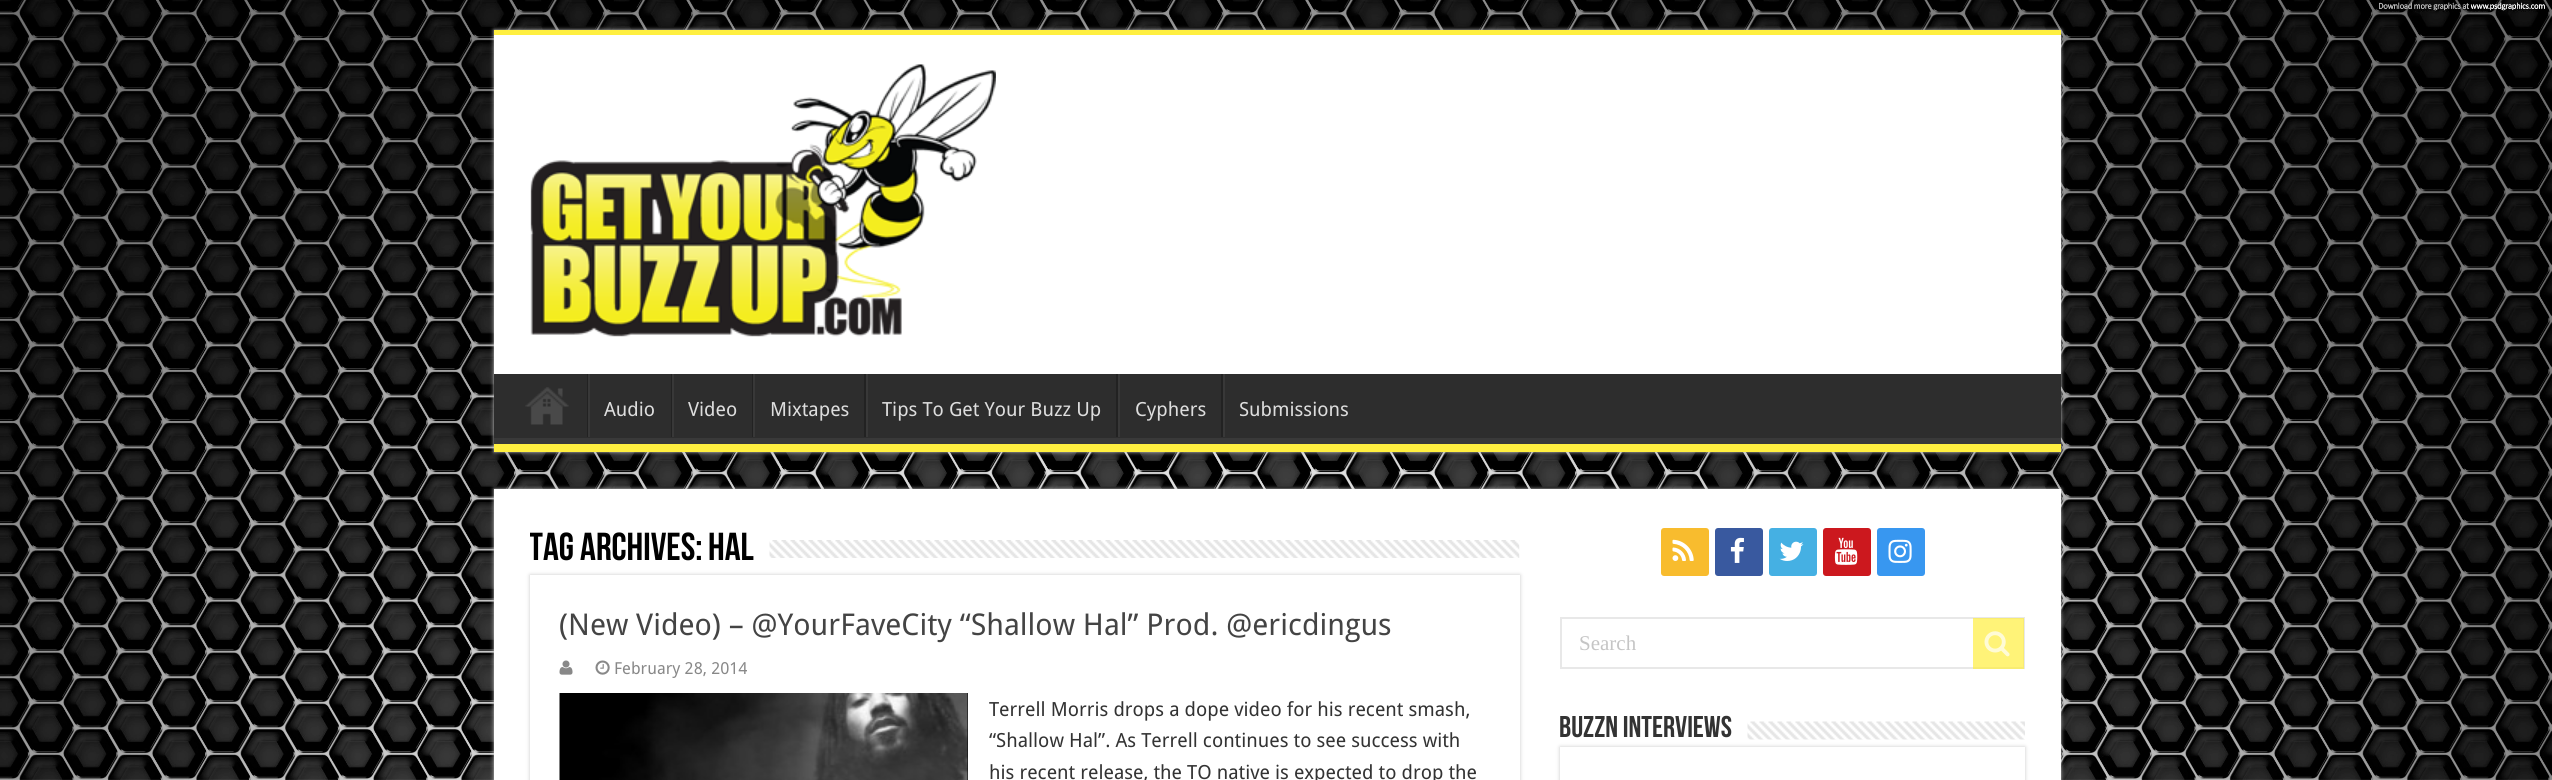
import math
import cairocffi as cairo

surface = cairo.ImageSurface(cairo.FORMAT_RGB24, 2552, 780)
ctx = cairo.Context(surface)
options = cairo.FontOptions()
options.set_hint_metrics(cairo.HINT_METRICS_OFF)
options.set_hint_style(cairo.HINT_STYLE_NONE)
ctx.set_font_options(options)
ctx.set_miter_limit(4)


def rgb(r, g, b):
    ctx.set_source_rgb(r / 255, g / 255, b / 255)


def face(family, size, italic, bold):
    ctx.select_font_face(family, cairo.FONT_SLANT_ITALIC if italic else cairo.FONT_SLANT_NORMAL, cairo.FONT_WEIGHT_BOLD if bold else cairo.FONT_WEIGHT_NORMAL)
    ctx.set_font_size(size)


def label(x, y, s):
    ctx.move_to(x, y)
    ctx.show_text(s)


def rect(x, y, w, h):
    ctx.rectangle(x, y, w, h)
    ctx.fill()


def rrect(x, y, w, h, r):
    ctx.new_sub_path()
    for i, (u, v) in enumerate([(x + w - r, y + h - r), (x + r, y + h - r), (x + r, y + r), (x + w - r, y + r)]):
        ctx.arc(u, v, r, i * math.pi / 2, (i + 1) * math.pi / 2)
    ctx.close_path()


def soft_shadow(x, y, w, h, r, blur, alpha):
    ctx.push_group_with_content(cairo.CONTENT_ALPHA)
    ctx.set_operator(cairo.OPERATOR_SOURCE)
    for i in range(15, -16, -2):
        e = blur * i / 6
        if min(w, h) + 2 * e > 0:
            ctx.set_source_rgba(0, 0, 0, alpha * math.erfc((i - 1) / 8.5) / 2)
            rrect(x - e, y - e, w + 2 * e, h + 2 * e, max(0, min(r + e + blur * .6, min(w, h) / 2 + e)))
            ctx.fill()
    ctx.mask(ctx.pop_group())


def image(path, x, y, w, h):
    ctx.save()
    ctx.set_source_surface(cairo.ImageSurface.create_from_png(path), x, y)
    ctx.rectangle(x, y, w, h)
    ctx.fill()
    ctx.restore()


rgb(255, 255, 255)
ctx.paint()
image('image0.png', 0, 779, 2552, 1)
image('image1.png', 0, 0, 2552, 780)
rgb(202, 202, 202)
soft_shadow(494, 30, 1567, 422, 0, 2, 1)
rgb(255, 255, 255)
rect(494, 35, 1567, 339)
rgb(255, 239, 64)
rect(494, 30, 1567, 5)
image('image2.png', 530, 64, 466, 273)
rgb(45, 45, 45)
rect(494, 374, 1567, 64)
ctx.save()
ctx.rectangle(494, 374, 1567, 70)
ctx.clip()
rgb(57, 57, 57)
ctx.set_fill_rule(cairo.FILL_RULE_EVEN_ODD)
ctx.new_path()
ctx.move_to(345, 225)
ctx.line_to(2210, 225)
ctx.line_to(2210, 592)
ctx.line_to(345, 592)
ctx.close_path()
ctx.move_to(492, 364)
ctx.line_to(2060, 364)
ctx.curve_to(2060, 364, 2061, 365, 2061, 366)
ctx.line_to(2061, 436)
ctx.curve_to(2061, 437, 2060, 438, 2060, 438)
ctx.line_to(492, 438)
ctx.curve_to(491, 438, 490, 437, 490, 436)
ctx.line_to(490, 366)
ctx.curve_to(490, 365, 491, 364, 492, 364)
ctx.close_path()
ctx.fill()
ctx.restore()
rgb(255, 239, 64)
rect(494, 444, 1567, 8)
image('image3.png', 525, 387, 44, 38)
rgb(34, 34, 34)
rect(587, 374, 1, 63)
rgb(56, 56, 56)
rect(588, 374, 2, 63)
face('Droid Sans', 19.5, 0, 0)
rgb(221, 221, 221)
label(604, 416, 'Audio')
rgb(34, 34, 34)
rect(671, 374, 1, 63)
rgb(56, 56, 56)
rect(672, 374, 2, 63)
rgb(221, 221, 221)
label(688, 416, 'Video')
rgb(34, 34, 34)
rect(752, 374, 1, 63)
rgb(56, 56, 56)
rect(753, 374, 2, 63)
rgb(221, 221, 221)
label(770, 416, 'Mixtapes')
rgb(34, 34, 34)
rect(864, 374, 2, 63)
rgb(56, 56, 56)
rect(866, 374, 2, 63)
rgb(221, 221, 221)
label(882, 416, 'Tips To Get Your Buzz Up')
rgb(34, 34, 34)
rect(1116, 374, 2, 63)
rgb(56, 56, 56)
rect(1118, 374, 2, 63)
rgb(221, 221, 221)
label(1135, 416, 'Cyphers')
rgb(34, 34, 34)
rect(1221, 374, 2, 63)
rgb(56, 56, 56)
rect(1223, 374, 2, 63)
rgb(221, 221, 221)
label(1239, 416, 'Submissions')
rgb(202, 202, 202)
soft_shadow(494, 489, 1567, 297, 0, 2, 1)
rgb(255, 255, 255)
rect(494, 489, 1567, 291)
ctx.save()
ctx.rectangle(530, 525, 990, 50)
ctx.clip()
face('Bebas Neue', 39, 0, 1)
rgb(0, 0, 0)
label(529, 560, 'Tag Archives:')
ctx.restore()
face('Bebas Neue', 39, 0, 1)
rgb(0, 0, 0)
label(708, 560, 'Hal')
image('image4.png', 769, 540, 751, 18)
rgb(202, 202, 202)
soft_shadow(530, 575, 990, 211, 0, 2, 1)
rgb(255, 255, 255)
rect(530, 575, 990, 205)
face('Droid Sans', 30, 0, 0)
rgb(68, 68, 68)
label(559, 635, '(New Video) – @YourFaveCity “Shallow Hal” Prod. @ericdingus')
image('image5.png', 559, 660, 14, 15)
image('image6.png', 595, 660, 15, 15)
face('Droid Sans', 16.5, 0, 0)
rgb(136, 136, 136)
label(614, 674, 'February 28, 2014')
rgb(0, 0, 0)
rect(967, 693, 1, 87)
image('image7.png', 559, 693, 409, 87)
face('Droid Sans', 19.5, 0, 0)
rgb(51, 51, 51)
label(989, 716, 'Terrell Morris drops a dope video for his recent smash,')
label(989, 747, '“Shallow Hal”. As Terrell continues to see success with')
label(989, 779, 'his recent release, the TO native is expected to drop the')
rgb(248, 188, 46)
rrect(1661, 528, 48, 48, 3)
ctx.fill()
image('image8.png', 1672, 539, 22, 22)
rgb(57, 89, 159)
rrect(1715, 528, 48, 48, 3)
ctx.fill()
image('image9.png', 1730, 537, 14, 26)
rgb(69, 176, 227)
rrect(1769, 528, 48, 48, 3)
ctx.fill()
image('image10.png', 1779, 541, 25, 20)
rgb(204, 24, 30)
rrect(1823, 528, 48, 48, 3)
ctx.fill()
image('image11.png', 1834, 537, 24, 28)
rgb(56, 151, 240)
rrect(1877, 528, 48, 48, 3)
ctx.fill()
image('image12.png', 1888, 539, 24, 24)
ctx.rectangle(1561, 618, 463, 50)
rgb(232, 232, 232)
ctx.stroke()
face('Liberation Serif', 21, 0, 0)
rgb(197, 197, 197)
label(1579, 650, 'Search')
ctx.set_source_rgba(1, 0.937, 0.251, 0.7)
rect(1973, 618, 51, 51)
image('image13.png', 1984, 631, 26, 26)
face('Bebas Neue', 30, 0, 1)
rgb(51, 51, 51)
label(1559, 737, 'BuzzN iNterviews')
image('image14.png', 1747, 721, 278, 19)
ctx.save()
ctx.set_fill_rule(cairo.FILL_RULE_EVEN_ODD)
ctx.new_path()
ctx.move_to(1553, 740)
ctx.line_to(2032, 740)
ctx.line_to(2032, 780)
ctx.line_to(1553, 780)
ctx.close_path()
ctx.move_to(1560, 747)
ctx.line_to(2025, 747)
ctx.line_to(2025, 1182)
ctx.line_to(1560, 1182)
ctx.close_path()
ctx.clip()
rgb(202, 202, 202)
soft_shadow(1560, 747, 465, 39, 0, 2, 1)
ctx.restore()
surface.write_to_png('render.png')
